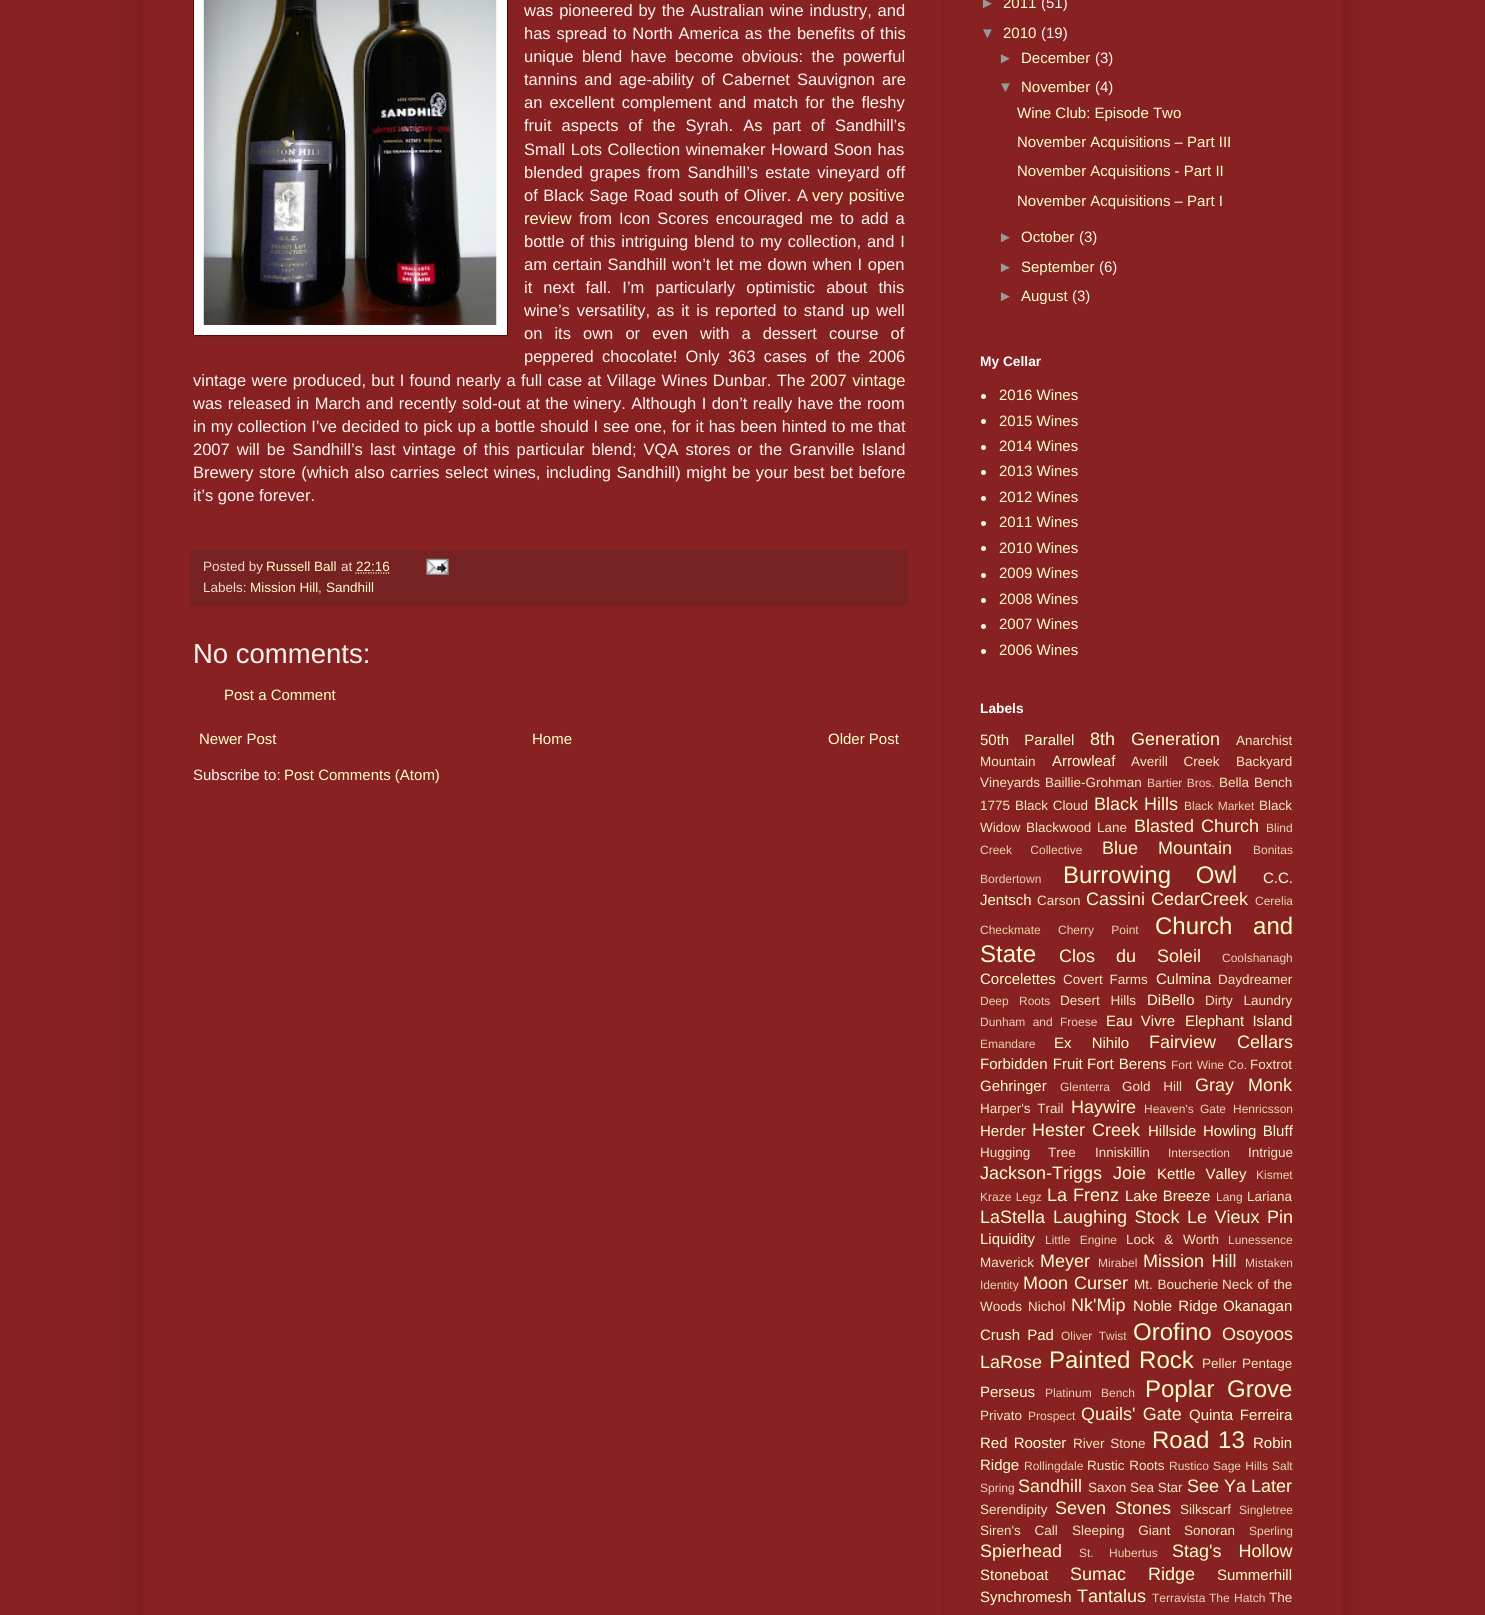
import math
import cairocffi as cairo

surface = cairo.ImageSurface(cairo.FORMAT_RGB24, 1485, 1615)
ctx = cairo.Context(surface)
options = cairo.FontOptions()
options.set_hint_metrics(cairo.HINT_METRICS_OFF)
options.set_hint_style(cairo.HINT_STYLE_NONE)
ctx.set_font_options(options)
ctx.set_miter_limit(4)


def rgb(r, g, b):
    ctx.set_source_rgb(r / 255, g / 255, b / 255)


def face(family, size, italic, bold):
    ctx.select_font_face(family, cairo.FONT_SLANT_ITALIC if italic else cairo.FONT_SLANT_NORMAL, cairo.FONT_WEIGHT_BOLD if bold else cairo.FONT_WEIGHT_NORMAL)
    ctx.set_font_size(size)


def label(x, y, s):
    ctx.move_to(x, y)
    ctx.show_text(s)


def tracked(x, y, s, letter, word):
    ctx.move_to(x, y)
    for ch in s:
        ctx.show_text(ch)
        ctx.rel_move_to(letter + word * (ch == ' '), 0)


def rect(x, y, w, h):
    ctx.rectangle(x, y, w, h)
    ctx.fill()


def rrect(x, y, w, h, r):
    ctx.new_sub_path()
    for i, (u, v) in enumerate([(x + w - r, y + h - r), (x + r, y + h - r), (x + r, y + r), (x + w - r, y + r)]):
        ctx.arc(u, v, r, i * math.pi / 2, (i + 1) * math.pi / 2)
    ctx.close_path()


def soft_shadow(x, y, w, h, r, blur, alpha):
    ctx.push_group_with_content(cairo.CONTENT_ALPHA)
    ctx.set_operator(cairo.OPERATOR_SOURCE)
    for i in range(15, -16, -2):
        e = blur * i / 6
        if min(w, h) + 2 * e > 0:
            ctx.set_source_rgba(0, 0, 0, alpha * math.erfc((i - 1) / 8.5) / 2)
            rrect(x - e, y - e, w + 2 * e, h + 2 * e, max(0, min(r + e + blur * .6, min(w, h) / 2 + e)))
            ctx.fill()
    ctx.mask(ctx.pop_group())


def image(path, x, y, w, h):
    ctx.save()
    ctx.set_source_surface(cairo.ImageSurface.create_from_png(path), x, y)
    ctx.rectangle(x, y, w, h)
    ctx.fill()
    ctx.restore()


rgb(136, 34, 34)
ctx.paint()
rgb(0, 0, 0)
soft_shadow(143, -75, 1200, 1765, 0, 25, 0.15)
rgb(136, 34, 34)
rect(143, 0, 1200, 1615)
rgb(0, 0, 0)
soft_shadow(194, -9, 315, 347, 0, 3, 0.1)
rgb(255, 255, 255)
ctx.rectangle(193.5, -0.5, 314, 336)
ctx.fill_preserve()
rgb(102, 0, 0)
ctx.set_line_width(1)
ctx.stroke()
image('image0.png', 203, 0, 294, 325)
face('Liberation Sans', 16.5, 0, 0)
rgb(255, 245, 238)
tracked(524, 16, 'was pioneered by the Australian wine industry, and', 0, 1.25)
tracked(524, 39, 'has spread to North America as the benefits of this', 0, 1.25)
tracked(524, 62, 'unique blend have become obvious: the powerful', 0, 3.75)
tracked(524, 85, 'tannins and age-ability of Cabernet Sauvignon are', 0, 2.5)
tracked(524, 108, 'an excellent complement and match for the fleshy', 0, 2.5)
tracked(524, 131, 'fruit aspects of the Syrah. As part of Sandhill’s', 0, 5.5)
tracked(524, 155, 'Small Lots Collection winemaker Howard Soon has', 0, 1)
tracked(524, 178, 'blended grapes from Sandhill’s estate vineyard off', 0, 2.5)
tracked(524, 201, 'of Black Sage Road south of Oliver. A', 0, 1)
rgb(255, 255, 204)
tracked(812, 201, 'very positive', 0, 1)
label(524, 224, 'review')
rgb(255, 245, 238)
tracked(579, 224, 'from Icon Scores encouraged me to add a', 0, 2.5)
tracked(524, 247, 'bottle of this intriguing blend to my collection, and I', 0, 1.25)
tracked(524, 270, 'am certain Sandhill won’t let me down when I open', 0, 1)
tracked(524, 293, 'it next fall. I’m particularly optimistic about this', 0, 6.5)
tracked(524, 316, 'wine’s versatility, as it is reported to stand up well', 0, 2.25)
tracked(524, 339, 'on its own or even with a dessert course of', 0, 7.5)
tracked(524, 362, 'peppered chocolate! Only 363 cases of the 2006', 0, 3.75)
tracked(193, 386, 'vintage were produced, but I found nearly a full case at Village Wines Dunbar. The', 0, 0.75)
rgb(255, 255, 204)
tracked(810, 386, '2007 vintage', 0, 1)
rgb(255, 245, 238)
tracked(193, 409, 'was released in March and recently sold-out at the winery. Although I don’t really have the room', 0, 0.8)
tracked(193, 432, 'in my collection I’ve decided to pick up a bottle should I see one, for it has been hinted to me that', 0, 0.3)
tracked(193, 455, '2007 will be Sandhill’s last vintage of this particular blend; VQA stores or the Granville Island', 0, 2.5)
tracked(193, 478, 'Brewery store (which also carries select wines, including Sandhill) might be your best bet before', 0, 0.9)
label(193, 501, 'it’s gone forever.')
rgb(119, 34, 34)
rect(190, 550, 718, 56)
face('Liberation Sans', 13.5, 0, 0)
rgb(238, 221, 204)
label(203, 571, 'Posted by')
rgb(255, 255, 204)
label(266, 571, 'Russell Ball')
rgb(238, 221, 204)
label(341, 571, 'at')
rgb(255, 255, 204)
label(356, 571, '22:16')
ctx.new_path()
ctx.move_to(355.5, 573)
ctx.line_to(389.5, 573)
ctx.set_line_width(1.2)
ctx.set_dash([1.25, 1.25])
ctx.stroke()
image('image1.png', 426, 558, 23, 17)
rgb(238, 221, 204)
label(203, 592, 'Labels:')
rgb(255, 255, 204)
label(250, 592, 'Mission Hill')
rgb(238, 221, 204)
label(318, 592, ',')
rgb(255, 255, 204)
label(326, 592, 'Sandhill')
face('Liberation Sans', 27.5, 0, 0)
rgb(255, 245, 238)
label(193, 663, 'No comments:')
face('Liberation Sans', 15, 0, 0)
rgb(255, 255, 204)
label(224, 700, 'Post a Comment')
label(199, 744, 'Newer Post')
label(532, 744, 'Home')
label(828, 744, 'Older Post')
rgb(255, 245, 238)
label(193, 780, 'Subscribe to:')
rgb(255, 255, 204)
label(284, 780, 'Post Comments (Atom)')
rgb(153, 153, 153)
label(980, 8, '►')
rgb(255, 255, 204)
label(1003, 8, '2011')
rgb(255, 245, 238)
label(1041, 8, '(51)')
rgb(153, 153, 153)
label(980, 38, '▼')
rgb(255, 255, 204)
label(1003, 38, '2010')
rgb(255, 245, 238)
label(1041, 38, '(19)')
rgb(153, 153, 153)
label(998, 63, '►')
rgb(255, 255, 204)
label(1021, 63, 'December')
rgb(255, 245, 238)
label(1095, 63, '(3)')
rgb(153, 153, 153)
label(998, 92, '▼')
rgb(255, 255, 204)
label(1021, 92, 'November')
rgb(255, 245, 238)
label(1095, 92, '(4)')
rgb(255, 255, 204)
label(1017, 118, 'Wine Club: Episode Two')
label(1017, 147, 'November Acquisitions – Part III')
label(1017, 176, 'November Acquisitions - Part II')
label(1017, 206, 'November Acquisitions – Part I')
rgb(153, 153, 153)
label(998, 242, '►')
rgb(255, 255, 204)
label(1021, 242, 'October')
rgb(255, 245, 238)
label(1079, 242, '(3)')
rgb(153, 153, 153)
label(998, 272, '►')
rgb(255, 255, 204)
label(1021, 272, 'September')
rgb(255, 245, 238)
label(1099, 272, '(6)')
rgb(153, 153, 153)
label(998, 301, '►')
rgb(255, 255, 204)
label(1021, 301, 'August')
rgb(255, 245, 238)
label(1072, 301, '(3)')
face('Liberation Sans', 13.75, 0, 1)
rgb(255, 255, 255)
label(980, 366, 'My Cellar')
rgb(255, 245, 238)
ctx.new_path()
ctx.arc(983.5, 396.5, 2.5, 0, 2 * math.pi)
ctx.fill()
face('Liberation Sans', 15, 0, 0)
rgb(255, 255, 204)
label(999, 400, '2016 Wines')
rgb(255, 245, 238)
ctx.new_path()
ctx.arc(983.5, 421.5, 2.5, 0, 2 * math.pi)
ctx.fill()
rgb(255, 255, 204)
label(999, 426, '2015 Wines')
rgb(255, 245, 238)
ctx.new_path()
ctx.arc(983.5, 447.5, 2.5, 0, 2 * math.pi)
ctx.fill()
rgb(255, 255, 204)
label(999, 451, '2014 Wines')
rgb(255, 245, 238)
ctx.new_path()
ctx.arc(983.5, 472.5, 2.5, 0, 2 * math.pi)
ctx.fill()
rgb(255, 255, 204)
label(999, 476, '2013 Wines')
rgb(255, 245, 238)
ctx.new_path()
ctx.arc(983.5, 498.5, 2.5, 0, 2 * math.pi)
ctx.fill()
rgb(255, 255, 204)
label(999, 502, '2012 Wines')
rgb(255, 245, 238)
ctx.new_path()
ctx.arc(983.5, 523.5, 2.5, 0, 2 * math.pi)
ctx.fill()
rgb(255, 255, 204)
label(999, 527, '2011 Wines')
rgb(255, 245, 238)
ctx.new_path()
ctx.arc(983.5, 548.5, 2.5, 0, 2 * math.pi)
ctx.fill()
rgb(255, 255, 204)
label(999, 553, '2010 Wines')
rgb(255, 245, 238)
ctx.new_path()
ctx.arc(983.5, 575.5, 2.5, 0, 2 * math.pi)
ctx.fill()
rgb(255, 255, 204)
label(999, 578, '2009 Wines')
rgb(255, 245, 238)
ctx.new_path()
ctx.arc(983.5, 600.5, 2.5, 0, 2 * math.pi)
ctx.fill()
rgb(255, 255, 204)
label(999, 604, '2008 Wines')
rgb(255, 245, 238)
ctx.new_path()
ctx.arc(983.5, 626.5, 2.5, 0, 2 * math.pi)
ctx.fill()
rgb(255, 255, 204)
label(999, 629, '2007 Wines')
rgb(255, 245, 238)
ctx.new_path()
ctx.arc(983.5, 651.5, 2.5, 0, 2 * math.pi)
ctx.fill()
rgb(255, 255, 204)
label(999, 655, '2006 Wines')
face('Liberation Sans', 13.75, 0, 1)
rgb(255, 255, 255)
label(980, 713, 'Labels')
face('Liberation Sans', 15, 0, 0)
rgb(255, 255, 204)
tracked(980, 745, '50th Parallel', 0, 11)
face('Liberation Sans', 18, 0, 0)
tracked(1090, 745, '8th Generation', 0, 11)
face('Liberation Sans', 13.5, 0, 0)
rgb(243, 233, 187)
label(1236, 745, 'Anarchist')
label(980, 766, 'Mountain')
face('Liberation Sans', 15, 0, 0)
rgb(255, 255, 204)
label(1052, 766, 'Arrowleaf')
face('Liberation Sans', 13.5, 0, 0)
rgb(243, 233, 187)
tracked(1131, 766, 'Averill Creek', 0, 12)
label(1236, 766, 'Backyard')
label(980, 787, 'Vineyards')
label(1045, 787, 'Baillie-Grohman')
face('Liberation Sans', 12, 0, 0)
rgb(231, 211, 170)
tracked(1147, 787, 'Bartier Bros.', 0, 1)
face('Liberation Sans', 13.5, 0, 0)
rgb(243, 233, 187)
label(1219, 787, 'Bella')
label(1254, 787, 'Bench')
label(980, 810, '1775')
tracked(1015, 810, 'Black Cloud', 0, 1)
face('Liberation Sans', 18, 0, 0)
rgb(255, 255, 204)
tracked(1094, 810, 'Black Hills', 0, 1)
face('Liberation Sans', 12, 0, 0)
rgb(231, 211, 170)
tracked(1184, 810, 'Black Market', 0, 1)
face('Liberation Sans', 13.5, 0, 0)
rgb(243, 233, 187)
label(1259, 810, 'Black')
label(980, 832, 'Widow')
tracked(1026, 832, 'Blackwood Lane', 0, 2)
face('Liberation Sans', 18, 0, 0)
rgb(255, 255, 204)
tracked(1134, 832, 'Blasted Church', 0, 2)
face('Liberation Sans', 12, 0, 0)
rgb(231, 211, 170)
label(1266, 832, 'Blind')
tracked(980, 854, 'Creek Collective', 0, 15)
face('Liberation Sans', 18, 0, 0)
rgb(255, 255, 204)
tracked(1102, 854, 'Blue Mountain', 0, 15)
face('Liberation Sans', 12, 0, 0)
rgb(231, 211, 170)
label(1253, 854, 'Bonitas')
label(980, 883, 'Bordertown')
face('Liberation Sans', 24, 0, 0)
rgb(255, 255, 204)
tracked(1063, 883, 'Burrowing Owl', 0, 18)
face('Liberation Sans', 15, 0, 0)
label(1263, 883, 'C.C.')
label(980, 905, 'Jentsch')
face('Liberation Sans', 13.5, 0, 0)
rgb(243, 233, 187)
label(1037, 905, 'Carson')
face('Liberation Sans', 18, 0, 0)
rgb(255, 255, 204)
label(1086, 905, 'Cassini')
label(1151, 905, 'CedarCreek')
face('Liberation Sans', 12, 0, 0)
rgb(231, 211, 170)
label(1255, 905, 'Cerelia')
label(980, 934, 'Checkmate')
tracked(1058, 934, 'Cherry Point', 0, 14)
face('Liberation Sans', 24, 0, 0)
rgb(255, 255, 204)
tracked(1155, 934, 'Church and', 0, 14)
label(980, 962, 'State')
face('Liberation Sans', 18, 0, 0)
tracked(1059, 962, 'Clos du Soleil', 0, 16)
face('Liberation Sans', 12, 0, 0)
rgb(231, 211, 170)
label(1222, 962, 'Coolshanagh')
face('Liberation Sans', 15, 0, 0)
rgb(255, 255, 204)
label(980, 984, 'Corcelettes')
face('Liberation Sans', 13.5, 0, 0)
rgb(243, 233, 187)
tracked(1063, 984, 'Covert Farms', 0, 3)
face('Liberation Sans', 15, 0, 0)
rgb(255, 255, 204)
label(1156, 984, 'Culmina')
face('Liberation Sans', 13.5, 0, 0)
rgb(243, 233, 187)
label(1218, 984, 'Daydreamer')
face('Liberation Sans', 12, 0, 0)
rgb(231, 211, 170)
tracked(980, 1005, 'Deep Roots', 0, 7)
face('Liberation Sans', 13.5, 0, 0)
rgb(243, 233, 187)
tracked(1060, 1005, 'Desert Hills', 0, 7)
face('Liberation Sans', 15, 0, 0)
rgb(255, 255, 204)
label(1147, 1005, 'DiBello')
face('Liberation Sans', 13.5, 0, 0)
rgb(243, 233, 187)
tracked(1205, 1005, 'Dirty Laundry', 0, 7)
face('Liberation Sans', 12, 0, 0)
rgb(231, 211, 170)
tracked(980, 1026, 'Dunham and Froese', 0, 4)
face('Liberation Sans', 15, 0, 0)
rgb(255, 255, 204)
tracked(1106, 1026, 'Eau Vivre', 0, 4)
tracked(1185, 1026, 'Elephant Island', 0, 4)
face('Liberation Sans', 12, 0, 0)
rgb(231, 211, 170)
label(980, 1048, 'Emandare')
face('Liberation Sans', 15, 0, 0)
rgb(255, 255, 204)
tracked(1054, 1048, 'Ex Nihilo', 0, 16)
face('Liberation Sans', 18, 0, 0)
tracked(1149, 1048, 'Fairview Cellars', 0, 16)
face('Liberation Sans', 15, 0, 0)
tracked(980, 1069, 'Forbidden Fruit', 0, 1)
tracked(1087, 1069, 'Fort Berens', 0, 1)
face('Liberation Sans', 12, 0, 0)
rgb(231, 211, 170)
tracked(1171, 1069, 'Fort Wine Co.', 0, 1)
face('Liberation Sans', 13.5, 0, 0)
rgb(243, 233, 187)
label(1250, 1069, 'Foxtrot')
face('Liberation Sans', 15, 0, 0)
rgb(255, 255, 204)
label(980, 1091, 'Gehringer')
face('Liberation Sans', 12, 0, 0)
rgb(231, 211, 170)
label(1060, 1091, 'Glenterra')
face('Liberation Sans', 13.5, 0, 0)
rgb(243, 233, 187)
tracked(1122, 1091, 'Gold Hill', 0, 9)
face('Liberation Sans', 18, 0, 0)
rgb(255, 255, 204)
tracked(1195, 1091, 'Gray Monk', 0, 9)
face('Liberation Sans', 13.5, 0, 0)
rgb(243, 233, 187)
tracked(980, 1113, 'Harper\'s Trail', 0, 3)
face('Liberation Sans', 18, 0, 0)
rgb(255, 255, 204)
label(1071, 1113, 'Haywire')
face('Liberation Sans', 12, 0, 0)
rgb(231, 211, 170)
tracked(1144, 1113, 'Heaven\'s Gate', 0, 3)
label(1233, 1113, 'Henricsson')
face('Liberation Sans', 15, 0, 0)
rgb(255, 255, 204)
label(980, 1136, 'Herder')
face('Liberation Sans', 18, 0, 0)
tracked(1032, 1136, 'Hester Creek', 0, 2)
face('Liberation Sans', 15, 0, 0)
label(1148, 1136, 'Hillside')
tracked(1203, 1136, 'Howling Bluff', 0, 2.25)
face('Liberation Sans', 13.5, 0, 0)
rgb(243, 233, 187)
tracked(980, 1157, 'Hugging Tree', 0, 14)
label(1095, 1157, 'Inniskillin')
face('Liberation Sans', 12, 0, 0)
rgb(231, 211, 170)
label(1168, 1157, 'Intersection')
face('Liberation Sans', 13.5, 0, 0)
rgb(243, 233, 187)
label(1248, 1157, 'Intrigue')
face('Liberation Sans', 18, 0, 0)
rgb(255, 255, 204)
label(980, 1179, 'Jackson-Triggs')
label(1113, 1179, 'Joie')
face('Liberation Sans', 15, 0, 0)
tracked(1157, 1179, 'Kettle Valley', 0, 6)
face('Liberation Sans', 12, 0, 0)
rgb(231, 211, 170)
label(1256, 1179, 'Kismet')
tracked(980, 1201, 'Kraze Legz', 0, 1)
face('Liberation Sans', 18, 0, 0)
rgb(255, 255, 204)
tracked(1047, 1201, 'La Frenz', 0, 1)
face('Liberation Sans', 15, 0, 0)
tracked(1125, 1201, 'Lake Breeze', 0, 1)
face('Liberation Sans', 12, 0, 0)
rgb(231, 211, 170)
label(1216, 1201, 'Lang')
face('Liberation Sans', 13.5, 0, 0)
rgb(243, 233, 187)
label(1247, 1201, 'Lariana')
face('Liberation Sans', 18, 0, 0)
rgb(255, 255, 204)
label(980, 1223, 'LaStella')
tracked(1053, 1223, 'Laughing Stock', 0, 2.5)
tracked(1187, 1223, 'Le Vieux Pin', 0, 2.5)
face('Liberation Sans', 15, 0, 0)
label(980, 1244, 'Liquidity')
face('Liberation Sans', 12, 0, 0)
rgb(231, 211, 170)
tracked(1045, 1244, 'Little Engine', 0, 6)
face('Liberation Sans', 13.5, 0, 0)
rgb(243, 233, 187)
tracked(1126, 1244, 'Lock & Worth', 0, 6)
face('Liberation Sans', 12, 0, 0)
rgb(231, 211, 170)
label(1228, 1244, 'Lunessence')
face('Liberation Sans', 13.5, 0, 0)
rgb(243, 233, 187)
label(980, 1267, 'Maverick')
face('Liberation Sans', 18, 0, 0)
rgb(255, 255, 204)
label(1040, 1267, 'Meyer')
face('Liberation Sans', 12, 0, 0)
rgb(231, 211, 170)
label(1098, 1267, 'Mirabel')
face('Liberation Sans', 18, 0, 0)
rgb(255, 255, 204)
tracked(1143, 1267, 'Mission Hill', 0, 2.5)
face('Liberation Sans', 12, 0, 0)
rgb(231, 211, 170)
label(1245, 1267, 'Mistaken')
label(980, 1289, 'Identity')
face('Liberation Sans', 18, 0, 0)
rgb(255, 255, 204)
tracked(1023, 1289, 'Moon Curser', 0, 1)
face('Liberation Sans', 13.5, 0, 0)
rgb(243, 233, 187)
tracked(1134, 1289, 'Mt. Boucherie', 0, 1)
tracked(1222, 1289, 'Neck of the', 0, 1)
label(980, 1311, 'Woods')
label(1028, 1311, 'Nichol')
face('Liberation Sans', 18, 0, 0)
rgb(255, 255, 204)
label(1071, 1311, 'Nk\'Mip')
face('Liberation Sans', 15, 0, 0)
tracked(1133, 1311, 'Noble Ridge', 0, 2)
label(1223, 1311, 'Okanagan')
tracked(980, 1340, 'Crush Pad', 0, 3)
face('Liberation Sans', 12, 0, 0)
rgb(231, 211, 170)
tracked(1061, 1340, 'Oliver Twist', 0, 3)
face('Liberation Sans', 24, 0, 0)
rgb(255, 255, 204)
label(1133, 1340, 'Orofino')
face('Liberation Sans', 18, 0, 0)
label(1222, 1340, 'Osoyoos')
label(980, 1368, 'LaRose')
face('Liberation Sans', 24, 0, 0)
tracked(1049, 1368, 'Painted Rock', 0, 2)
face('Liberation Sans', 13.5, 0, 0)
rgb(243, 233, 187)
label(1202, 1368, 'Peller')
label(1242, 1368, 'Pentage')
face('Liberation Sans', 15, 0, 0)
rgb(255, 255, 204)
label(980, 1397, 'Perseus')
face('Liberation Sans', 12, 0, 0)
rgb(231, 211, 170)
tracked(1045, 1397, 'Platinum Bench', 0, 6)
face('Liberation Sans', 24, 0, 0)
rgb(255, 255, 204)
tracked(1145, 1397, 'Poplar Grove', 0, 6)
face('Liberation Sans', 13.5, 0, 0)
rgb(243, 233, 187)
label(980, 1420, 'Privato')
face('Liberation Sans', 12, 0, 0)
rgb(231, 211, 170)
label(1028, 1420, 'Prospect')
face('Liberation Sans', 18, 0, 0)
rgb(255, 255, 204)
tracked(1081, 1420, 'Quails\' Gate', 0, 2.25)
face('Liberation Sans', 15, 0, 0)
tracked(1189, 1420, 'Quinta Ferreira', 0, 2.5)
tracked(980, 1448, 'Red Rooster', 0, 2)
face('Liberation Sans', 13.5, 0, 0)
rgb(243, 233, 187)
tracked(1073, 1448, 'River Stone', 0, 2)
face('Liberation Sans', 24, 0, 0)
rgb(255, 255, 204)
tracked(1152, 1448, 'Road 13', 0, 2)
face('Liberation Sans', 15, 0, 0)
label(1253, 1448, 'Robin')
label(980, 1470, 'Ridge')
face('Liberation Sans', 12, 0, 0)
rgb(231, 211, 170)
label(1024, 1470, 'Rollingdale')
face('Liberation Sans', 13.5, 0, 0)
rgb(243, 233, 187)
tracked(1087, 1470, 'Rustic Roots', 0, 1)
face('Liberation Sans', 12, 0, 0)
rgb(231, 211, 170)
label(1169, 1470, 'Rustico')
tracked(1213, 1470, 'Sage Hills', 0, 1)
label(1272, 1470, 'Salt')
label(980, 1492, 'Spring')
face('Liberation Sans', 18, 0, 0)
rgb(255, 255, 204)
label(1018, 1492, 'Sandhill')
face('Liberation Sans', 13.5, 0, 0)
rgb(243, 233, 187)
label(1088, 1492, 'Saxon')
label(1130, 1492, 'Sea Star')
face('Liberation Sans', 18, 0, 0)
rgb(255, 255, 204)
label(1187, 1492, 'See Ya Later')
face('Liberation Sans', 13.5, 0, 0)
rgb(243, 233, 187)
label(980, 1514, 'Serendipity')
face('Liberation Sans', 18, 0, 0)
rgb(255, 255, 204)
tracked(1055, 1514, 'Seven Stones', 0, 4)
face('Liberation Sans', 13.5, 0, 0)
rgb(243, 233, 187)
label(1180, 1514, 'Silkscarf')
face('Liberation Sans', 12, 0, 0)
rgb(231, 211, 170)
label(1239, 1514, 'Singletree')
face('Liberation Sans', 13.5, 0, 0)
rgb(243, 233, 187)
tracked(980, 1535, 'Siren\'s Call', 0, 10)
tracked(1072, 1535, 'Sleeping Giant', 0, 10)
label(1184, 1535, 'Sonoran')
face('Liberation Sans', 12, 0, 0)
rgb(231, 211, 170)
label(1249, 1535, 'Sperling')
face('Liberation Sans', 18, 0, 0)
rgb(255, 255, 204)
label(980, 1557, 'Spierhead')
face('Liberation Sans', 12, 0, 0)
rgb(231, 211, 170)
tracked(1079, 1557, 'St. Hubertus', 0, 12)
face('Liberation Sans', 18, 0, 0)
rgb(255, 255, 204)
tracked(1172, 1557, 'Stag\'s Hollow', 0, 12)
face('Liberation Sans', 15, 0, 0)
label(980, 1580, 'Stoneboat')
face('Liberation Sans', 18, 0, 0)
tracked(1070, 1580, 'Sumac Ridge', 0, 17)
face('Liberation Sans', 15, 0, 0)
label(1217, 1580, 'Summerhill')
label(980, 1602, 'Synchromesh')
face('Liberation Sans', 18, 0, 0)
label(1077, 1602, 'Tantalus')
face('Liberation Sans', 12, 0, 0)
rgb(231, 211, 170)
label(1152, 1602, 'Terravista')
tracked(1209, 1602, 'The Hatch', 0, 1)
face('Liberation Sans', 13.5, 0, 0)
rgb(243, 233, 187)
label(1269, 1602, 'The')
rgb(119, 34, 34)
rect(943, 0, 1, 1615)
surface.write_to_png('render.png')
